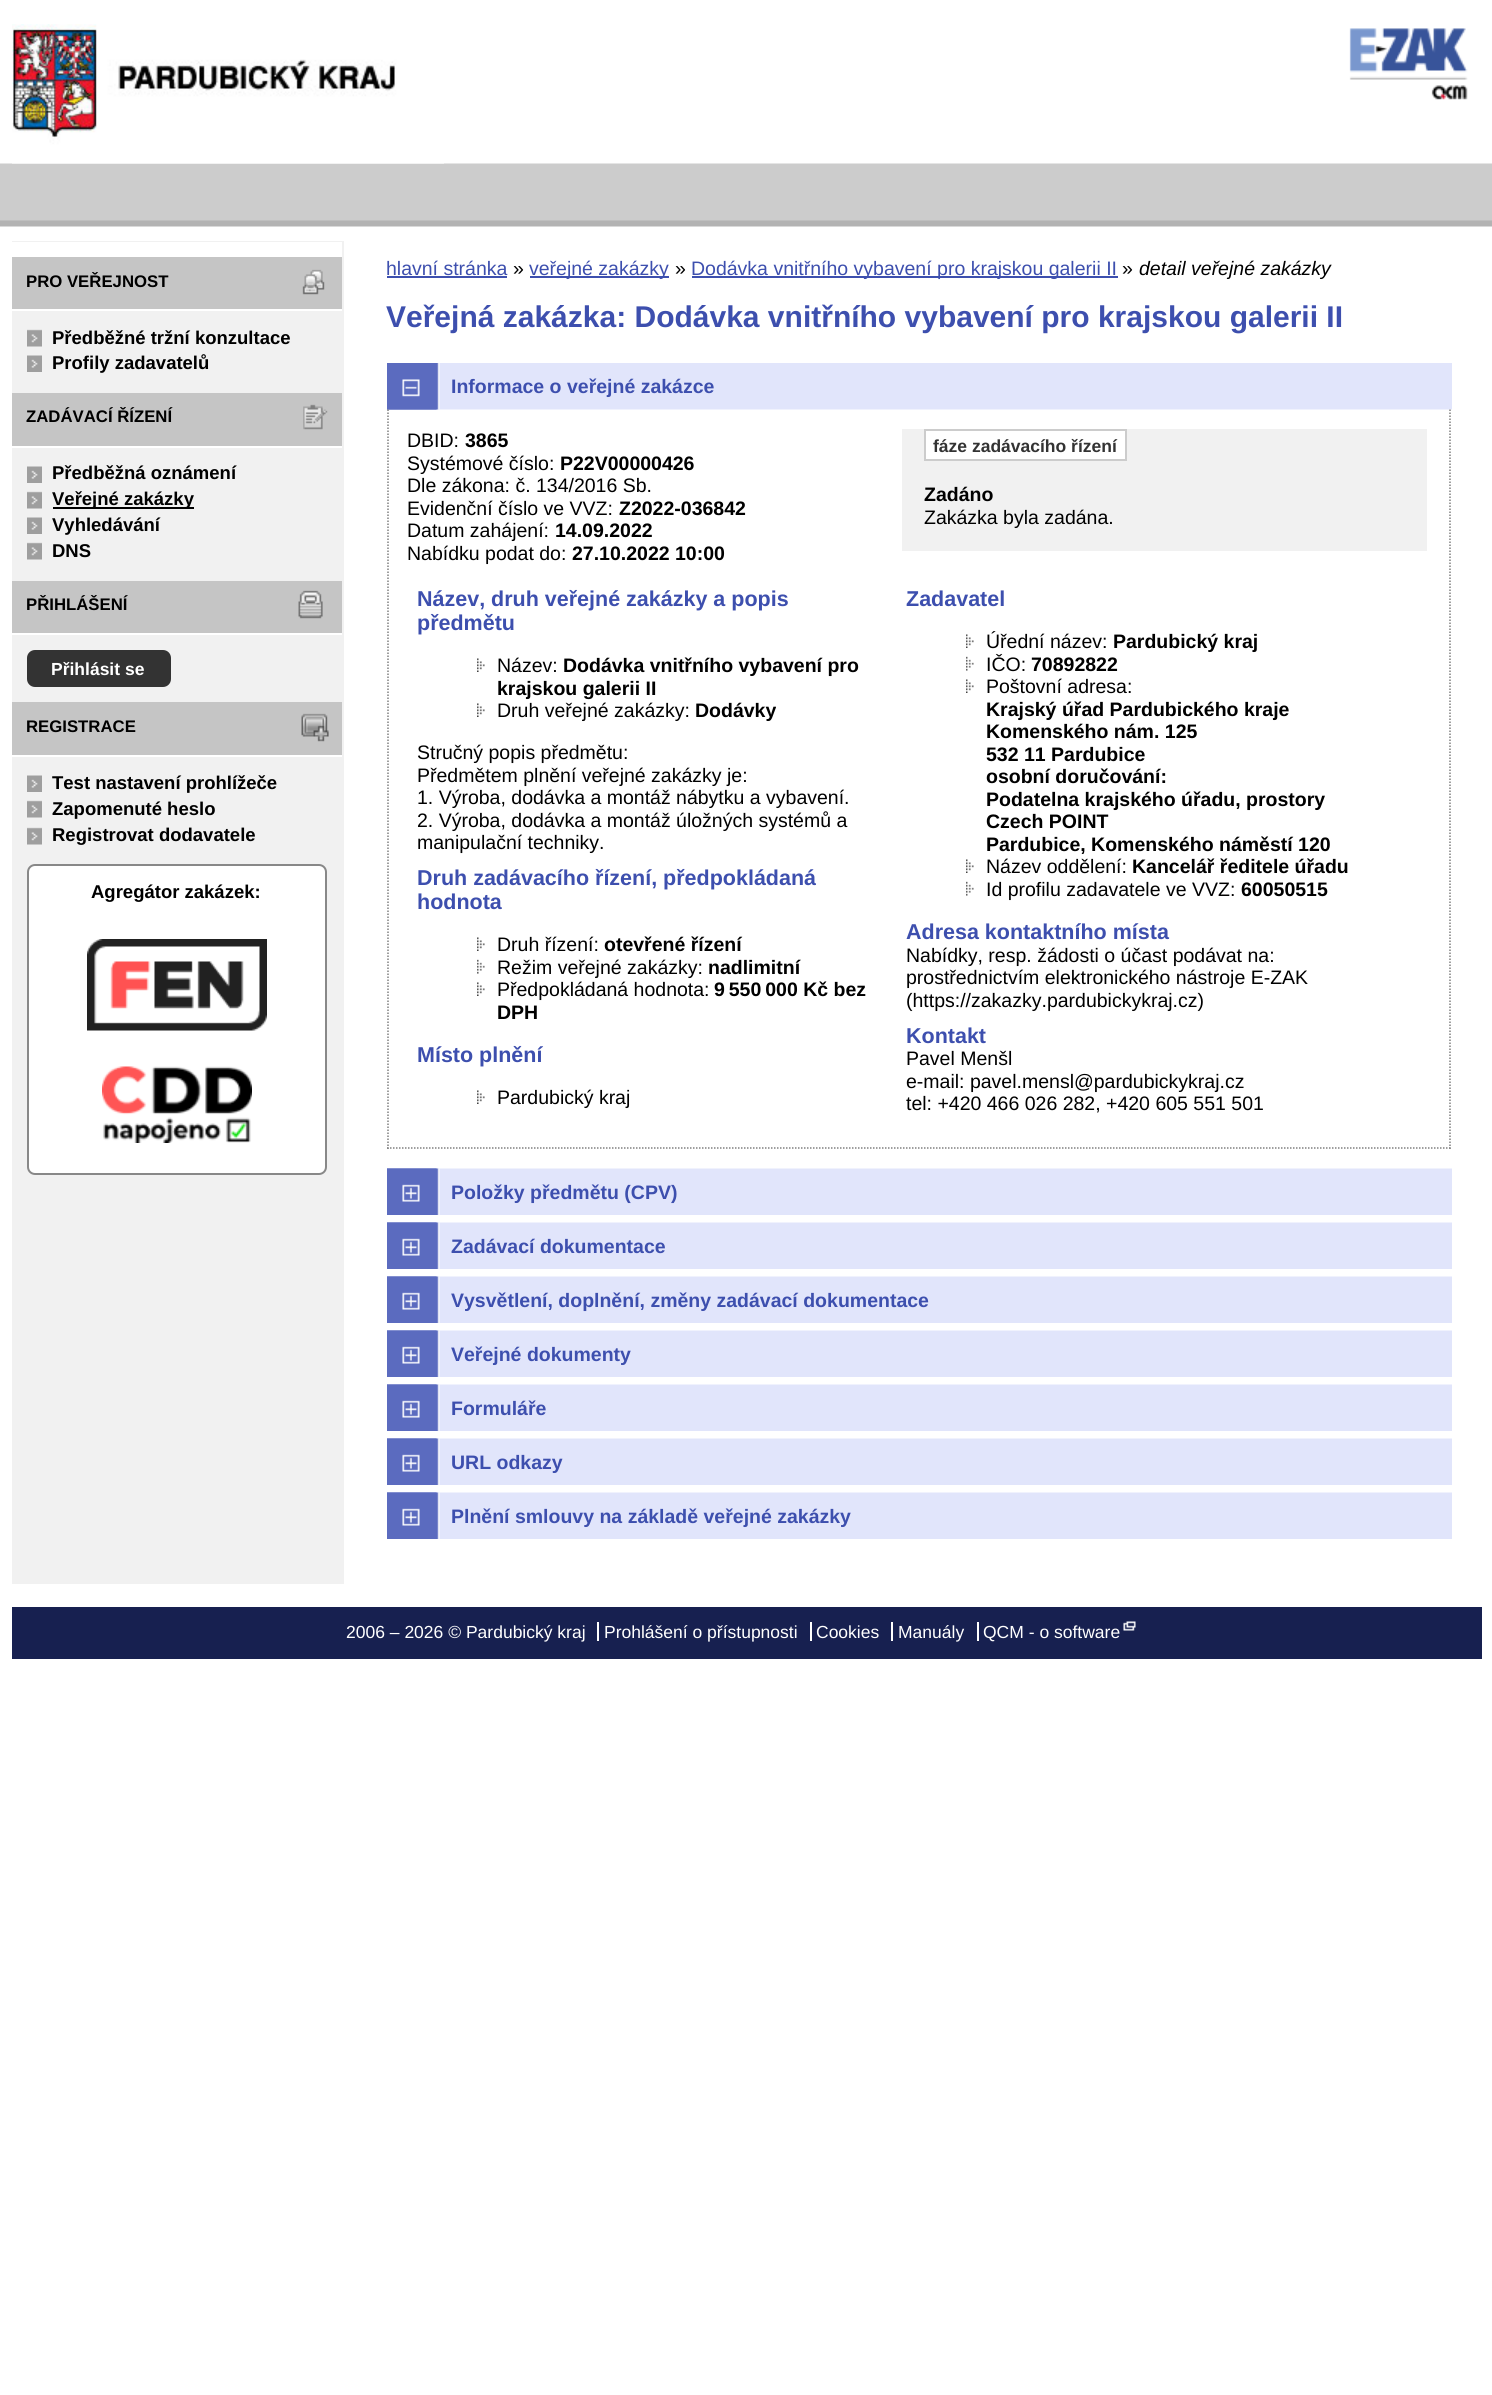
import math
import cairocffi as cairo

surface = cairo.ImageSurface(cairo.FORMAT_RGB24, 1492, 2395)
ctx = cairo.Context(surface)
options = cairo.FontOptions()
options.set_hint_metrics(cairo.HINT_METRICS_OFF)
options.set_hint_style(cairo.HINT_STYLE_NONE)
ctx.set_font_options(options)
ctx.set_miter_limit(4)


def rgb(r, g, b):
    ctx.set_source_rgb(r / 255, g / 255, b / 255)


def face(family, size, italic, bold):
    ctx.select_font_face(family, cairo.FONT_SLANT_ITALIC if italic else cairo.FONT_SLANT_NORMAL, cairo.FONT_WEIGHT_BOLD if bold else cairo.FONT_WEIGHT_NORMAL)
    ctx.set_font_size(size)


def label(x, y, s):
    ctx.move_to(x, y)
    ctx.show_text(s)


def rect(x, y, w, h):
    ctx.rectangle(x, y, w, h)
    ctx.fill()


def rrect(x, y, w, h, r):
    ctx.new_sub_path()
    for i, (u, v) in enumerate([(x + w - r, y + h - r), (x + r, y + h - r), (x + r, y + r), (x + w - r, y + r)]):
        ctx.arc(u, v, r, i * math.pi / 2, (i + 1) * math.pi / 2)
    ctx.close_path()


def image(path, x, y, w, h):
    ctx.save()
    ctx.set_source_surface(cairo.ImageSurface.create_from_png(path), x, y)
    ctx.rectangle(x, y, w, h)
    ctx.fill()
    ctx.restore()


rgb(255, 255, 255)
ctx.paint()
image('image0.png', 0, 163, 1492, 64)
image('image1.png', 12, 24, 432, 140)
image('image2.png', 1349, 28, 119, 72)
rgb(241, 241, 241)
rect(12, 241, 332, 1343)
rgb(255, 255, 255)
rect(12, 242, 330, 15)
rgb(197, 197, 197)
rect(12, 257, 330, 52)
image('image3.png', 302, 269, 23, 26)
rgb(255, 255, 255)
rect(12, 309, 330, 2)
face('Liberation Sans', 16.75, 0, 1)
rgb(0, 0, 0)
label(26, 287, 'PRO VEŘEJNOST')
image('image4.png', 27, 329, 15, 18)
face('Liberation Sans', 18.5, 0, 1)
label(52, 344, 'Předběžné tržní konzultace')
image('image5.png', 27, 355, 15, 17)
label(52, 369, 'Profily zadavatelů')
rgb(197, 197, 197)
rect(12, 393, 330, 53)
image('image6.png', 303, 404, 25, 26)
rgb(255, 255, 255)
rect(12, 446, 330, 2)
face('Liberation Sans', 16.75, 0, 1)
rgb(0, 0, 0)
label(26, 422, 'ZADÁVACÍ ŘÍZENÍ')
image('image5.png', 27, 466, 15, 17)
face('Liberation Sans', 18.5, 0, 1)
label(52, 479, 'Předběžná oznámení')
image('image4.png', 27, 491, 15, 18)
rect(53, 507, 141, 2)
label(52, 505, 'Veřejné zakázky')
image('image5.png', 27, 517, 15, 17)
label(52, 531, 'Vyhledávání')
image('image4.png', 27, 542, 15, 18)
label(52, 557, 'DNS')
rgb(197, 197, 197)
rect(12, 581, 330, 52)
image('image7.png', 298, 590, 25, 29)
rgb(255, 255, 255)
rect(12, 633, 330, 2)
face('Liberation Sans', 16.75, 0, 1)
rgb(0, 0, 0)
label(26, 610, 'PŘIHLÁŠENÍ')
rgb(51, 51, 51)
rrect(27, 650, 144, 37, 8)
ctx.fill()
face('Liberation Sans', 17.5, 0, 1)
rgb(255, 255, 255)
label(51, 675, 'Přihlásit se')
rgb(197, 197, 197)
rect(12, 702, 330, 53)
image('image8.png', 301, 713, 28, 29)
rgb(255, 255, 255)
rect(12, 755, 330, 2)
face('Liberation Sans', 16.75, 0, 1)
rgb(0, 0, 0)
label(26, 732, 'REGISTRACE')
image('image5.png', 27, 775, 15, 17)
face('Liberation Sans', 18.5, 0, 1)
label(52, 789, 'Test nastavení prohlížeče')
image('image4.png', 27, 800, 15, 18)
label(52, 815, 'Zapomenuté heslo')
image('image4.png', 27, 827, 15, 18)
label(52, 841, 'Registrovat dodavatele')
rgb(255, 255, 255)
rrect(28, 865, 298, 309, 7)
ctx.fill_preserve()
rgb(136, 136, 136)
ctx.stroke()
rgb(0, 0, 0)
label(91, 898, 'Agregátor zakázek:')
image('image9.png', 87, 939, 180, 92)
image('image10.png', 102, 1066, 150, 77)
face('Liberation Sans', 19.5, 0, 0)
rgb(61, 79, 174)
label(386, 275, 'hlavní stránka')
rect(387, 276, 120, 2)
rgb(0, 0, 0)
label(513, 275, '»')
rgb(61, 79, 174)
rect(530, 276, 139, 2)
label(529, 275, 'veřejné zakázky')
rgb(0, 0, 0)
label(675, 275, '»')
rgb(61, 79, 174)
rect(692, 276, 426, 2)
label(691, 275, 'Dodávka vnitřního vybavení pro krajskou galerii II')
rgb(0, 0, 0)
label(1122, 275, '»')
face('Liberation Sans', 19.5, 1, 0)
label(1139, 275, 'detail veřejné zakázky')
face('Liberation Sans', 30, 0, 1)
rgb(61, 79, 174)
label(386, 327, 'Veřejná zakázka: Dodávka vnitřního vybavení pro krajskou galerii II')
image('image11.png', 387, 363, 1065, 47)
image('image12.png', 387, 363, 53, 47)
face('Liberation Sans', 19.5, 0, 1)
label(451, 393, 'Informace o veřejné zakázce')
ctx.new_path()
ctx.move_to(1450, 409.5)
ctx.line_to(1450, 1149)
rgb(127, 127, 127)
ctx.set_line_width(1.5)
ctx.set_dash([1.5, 1.5])
ctx.stroke()
ctx.new_path()
ctx.move_to(387, 1148)
ctx.line_to(1450.5, 1148)
ctx.stroke()
ctx.new_path()
ctx.move_to(388, 409.5)
ctx.line_to(388, 1149)
ctx.stroke()
face('Liberation Sans', 19.5, 0, 0)
rgb(0, 0, 0)
label(407, 447, 'DBID:')
face('Liberation Sans', 19.5, 0, 1)
label(465, 447, '3865')
rgb(241, 241, 241)
rect(902, 429, 525, 122)
rgb(255, 255, 255)
ctx.rectangle(925, 430, 201, 30)
ctx.fill_preserve()
rgb(204, 204, 204)
ctx.set_line_width(2)
ctx.set_dash([])
ctx.stroke()
face('Liberation Sans', 17.5, 0, 1)
rgb(51, 51, 51)
label(933, 452, 'fáze zadávacího řízení')
face('Liberation Sans', 19.5, 0, 1)
rgb(0, 0, 0)
label(924, 501, 'Zadáno')
face('Liberation Sans', 19.5, 0, 0)
label(924, 524, 'Zakázka byla zadána.')
label(407, 470, 'Systémové číslo:')
face('Liberation Sans', 19.5, 0, 1)
label(560, 470, 'P22V00000426')
face('Liberation Sans', 19.5, 0, 0)
label(407, 492, 'Dle zákona: č. 134/2016 Sb.')
label(407, 515, 'Evidenční číslo ve VVZ:')
face('Liberation Sans', 19.5, 0, 1)
label(619, 515, 'Z2022-036842')
face('Liberation Sans', 19.5, 0, 0)
label(407, 537, 'Datum zahájení:')
face('Liberation Sans', 19.5, 0, 1)
label(555, 537, '14.09.2022')
face('Liberation Sans', 19.5, 0, 0)
label(407, 560, 'Nabídku podat do:')
face('Liberation Sans', 19.5, 0, 1)
label(572, 560, '27.10.2022 10:00')
face('Liberation Sans', 21.5, 0, 1)
rgb(61, 79, 174)
label(417, 606, 'Název, druh veřejné zakázky a popis')
label(417, 630, 'předmětu')
image('image13.png', 477, 658, 8, 14)
face('Liberation Sans', 19.5, 0, 0)
rgb(0, 0, 0)
label(497, 672, 'Název:')
face('Liberation Sans', 19.5, 0, 1)
label(563, 672, 'Dodávka vnitřního vybavení pro')
label(497, 695, 'krajskou galerii II')
image('image13.png', 477, 703, 8, 14)
face('Liberation Sans', 19.5, 0, 0)
label(497, 717, 'Druh veřejné zakázky:')
face('Liberation Sans', 19.5, 0, 1)
label(695, 717, 'Dodávky')
face('Liberation Sans', 19.5, 0, 0)
label(417, 759, 'Stručný popis předmětu:')
label(417, 782, 'Předmětem plnění veřejné zakázky je:')
label(417, 804, '1. Výroba, dodávka a montáž nábytku a vybavení.')
label(417, 827, '2. Výroba, dodávka a montáž úložných systémů a')
label(417, 849, 'manipulační techniky.')
face('Liberation Sans', 21.5, 0, 1)
rgb(61, 79, 174)
label(417, 885, 'Druh zadávacího řízení, předpokládaná')
label(417, 909, 'hodnota')
image('image13.png', 477, 937, 8, 14)
face('Liberation Sans', 19.5, 0, 0)
rgb(0, 0, 0)
label(497, 951, 'Druh řízení:')
face('Liberation Sans', 19.5, 0, 1)
label(604, 951, 'otevřené řízení')
image('image14.png', 477, 959, 8, 15)
face('Liberation Sans', 19.5, 0, 0)
label(497, 974, 'Režim veřejné zakázky:')
face('Liberation Sans', 19.5, 0, 1)
label(708, 974, 'nadlimitní')
image('image13.png', 477, 982, 8, 14)
face('Liberation Sans', 19.5, 0, 0)
label(497, 996, 'Předpokládaná hodnota:')
face('Liberation Sans', 19.5, 0, 1)
label(714, 996, '9 550 000 Kč bez')
label(497, 1019, 'DPH')
face('Liberation Sans', 21.5, 0, 1)
rgb(61, 79, 174)
label(417, 1062, 'Místo plnění')
image('image13.png', 477, 1090, 8, 14)
face('Liberation Sans', 19.5, 0, 0)
rgb(0, 0, 0)
label(497, 1104, 'Pardubický kraj')
face('Liberation Sans', 21.5, 0, 1)
rgb(61, 79, 174)
label(906, 606, 'Zadavatel')
image('image15.png', 966, 634, 8, 14)
face('Liberation Sans', 19.5, 0, 0)
rgb(0, 0, 0)
label(986, 648, 'Úřední název:')
face('Liberation Sans', 19.5, 0, 1)
label(1113, 648, 'Pardubický kraj')
image('image16.png', 966, 656, 8, 15)
face('Liberation Sans', 19.5, 0, 0)
label(986, 671, 'IČO:')
face('Liberation Sans', 19.5, 0, 1)
label(1031, 671, '70892822')
image('image15.png', 966, 679, 8, 14)
face('Liberation Sans', 19.5, 0, 0)
label(986, 693, 'Poštovní adresa:')
face('Liberation Sans', 19.5, 0, 1)
label(986, 716, 'Krajský úřad Pardubického kraje')
label(986, 738, 'Komenského nám. 125')
label(986, 761, '532 11 Pardubice')
label(986, 783, 'osobní doručování:')
label(986, 806, 'Podatelna krajského úřadu, prostory')
label(986, 828, 'Czech POINT')
label(986, 851, 'Pardubice, Komenského náměstí 120')
image('image15.png', 966, 859, 8, 14)
face('Liberation Sans', 19.5, 0, 0)
label(986, 873, 'Název oddělení:')
face('Liberation Sans', 19.5, 0, 1)
label(1132, 873, 'Kancelář ředitele úřadu')
image('image16.png', 966, 881, 8, 15)
face('Liberation Sans', 19.5, 0, 0)
label(986, 896, 'Id profilu zadavatele ve VVZ:')
face('Liberation Sans', 19.5, 0, 1)
label(1241, 896, '60050515')
face('Liberation Sans', 21.5, 0, 1)
rgb(61, 79, 174)
label(906, 939, 'Adresa kontaktního místa')
face('Liberation Sans', 19.5, 0, 0)
rgb(0, 0, 0)
label(906, 962, 'Nabídky, resp. žádosti o účast podávat na:')
label(906, 984, 'prostřednictvím elektronického nástroje E-ZAK')
label(906, 1007, '(https://zakazky.pardubickykraj.cz)')
face('Liberation Sans', 21.5, 0, 1)
rgb(61, 79, 174)
label(906, 1043, 'Kontakt')
face('Liberation Sans', 19.5, 0, 0)
rgb(0, 0, 0)
label(906, 1065, 'Pavel Menšl')
label(906, 1088, 'e-mail: pavel.mensl@pardubickykraj.cz')
label(906, 1110, 'tel: +420 466 026 282, +420 605 551 501')
image('image17.png', 387, 1168, 1065, 47)
image('image18.png', 387, 1168, 53, 47)
face('Liberation Sans', 19.5, 0, 1)
rgb(61, 79, 174)
label(451, 1199, 'Položky předmětu (CPV)')
image('image17.png', 387, 1222, 1065, 47)
image('image18.png', 387, 1222, 53, 47)
label(451, 1253, 'Zadávací dokumentace')
image('image17.png', 387, 1276, 1065, 47)
image('image18.png', 387, 1276, 53, 47)
label(451, 1307, 'Vysvětlení, doplnění, změny zadávací dokumentace')
image('image17.png', 387, 1330, 1065, 47)
image('image18.png', 387, 1330, 53, 47)
label(451, 1361, 'Veřejné dokumenty')
image('image17.png', 387, 1384, 1065, 47)
image('image18.png', 387, 1384, 53, 47)
label(451, 1415, 'Formuláře')
image('image17.png', 387, 1438, 1065, 47)
image('image18.png', 387, 1438, 53, 47)
label(451, 1469, 'URL odkazy')
image('image17.png', 387, 1492, 1065, 47)
image('image18.png', 387, 1492, 53, 47)
label(451, 1523, 'Plnění smlouvy na základě veřejné zakázky')
rgb(23, 32, 80)
rect(12, 1607, 1470, 52)
face('Liberation Sans', 17.5, 0, 0)
rgb(255, 255, 255)
label(346, 1638, '2006 – 2026 © Pardubický kraj')
rect(597, 1622, 2, 19)
label(604, 1638, 'Prohlášení o přístupnosti')
rect(810, 1622, 2, 19)
label(816, 1638, 'Cookies')
rect(891, 1622, 2, 19)
label(898, 1638, 'Manuály')
rect(977, 1622, 2, 19)
label(983, 1638, 'QCM - o software')
image('image19.png', 1123, 1621, 13, 10)
surface.write_to_png('render.png')
